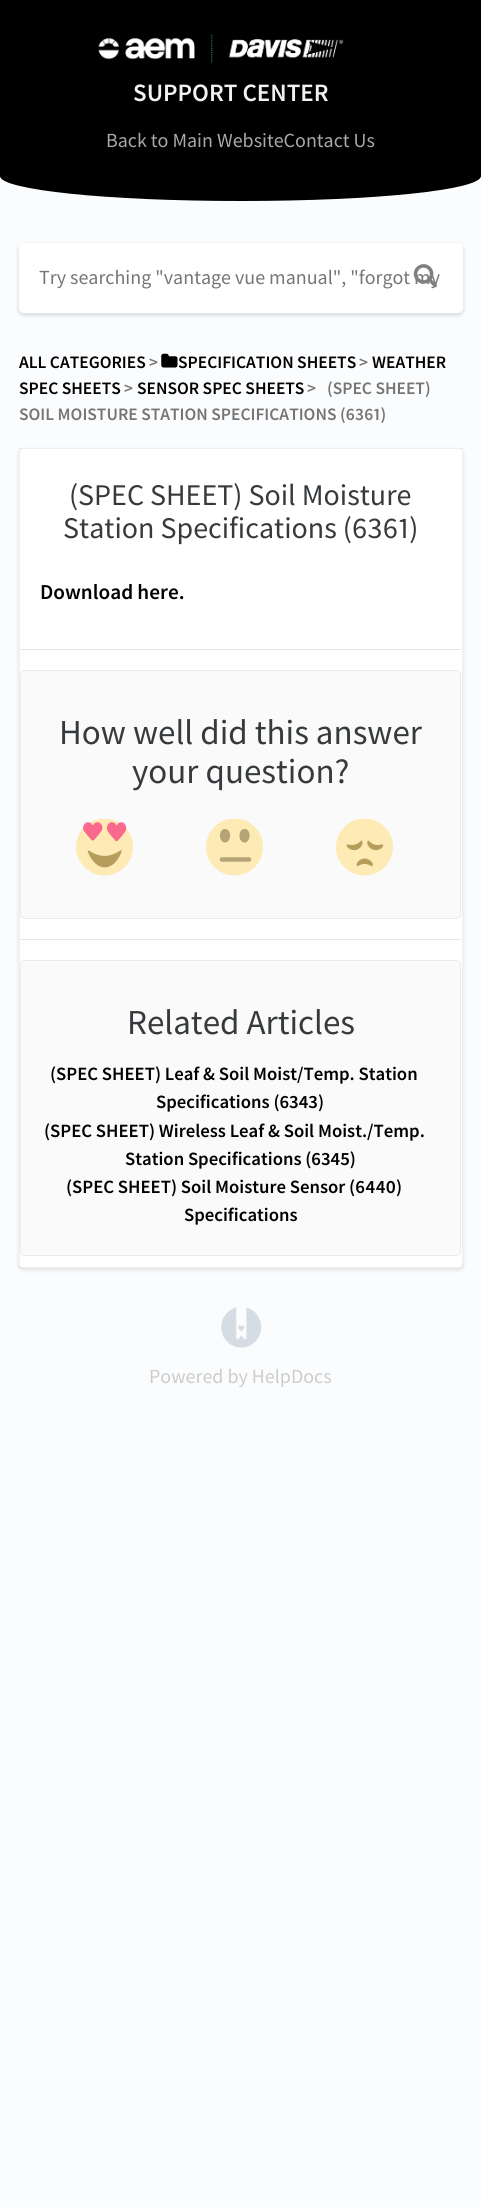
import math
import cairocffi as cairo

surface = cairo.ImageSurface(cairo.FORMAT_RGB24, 481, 2207)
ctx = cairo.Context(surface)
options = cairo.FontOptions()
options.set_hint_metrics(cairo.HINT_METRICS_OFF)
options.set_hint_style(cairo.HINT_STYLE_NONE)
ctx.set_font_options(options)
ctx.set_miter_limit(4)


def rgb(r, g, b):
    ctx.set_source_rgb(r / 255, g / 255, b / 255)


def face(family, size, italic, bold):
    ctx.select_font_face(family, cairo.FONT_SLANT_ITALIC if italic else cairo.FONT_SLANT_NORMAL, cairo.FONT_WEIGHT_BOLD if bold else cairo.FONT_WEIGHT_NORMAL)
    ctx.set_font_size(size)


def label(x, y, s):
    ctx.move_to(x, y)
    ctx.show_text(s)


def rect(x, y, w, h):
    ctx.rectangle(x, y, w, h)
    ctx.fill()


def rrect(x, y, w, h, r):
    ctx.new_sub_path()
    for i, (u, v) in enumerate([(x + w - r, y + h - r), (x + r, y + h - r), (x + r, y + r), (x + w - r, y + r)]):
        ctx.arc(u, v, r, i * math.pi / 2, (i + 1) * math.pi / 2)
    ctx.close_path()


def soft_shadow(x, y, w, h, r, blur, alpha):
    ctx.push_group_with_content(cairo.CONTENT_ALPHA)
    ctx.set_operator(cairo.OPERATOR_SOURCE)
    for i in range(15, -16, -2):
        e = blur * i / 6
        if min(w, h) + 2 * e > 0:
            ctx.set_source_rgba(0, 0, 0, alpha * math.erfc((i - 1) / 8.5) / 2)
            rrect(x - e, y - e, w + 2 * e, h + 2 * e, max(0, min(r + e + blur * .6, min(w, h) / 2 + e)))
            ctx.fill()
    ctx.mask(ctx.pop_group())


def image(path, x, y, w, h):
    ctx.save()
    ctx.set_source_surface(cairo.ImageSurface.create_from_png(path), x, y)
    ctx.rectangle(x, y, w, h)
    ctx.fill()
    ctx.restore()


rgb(251, 252, 254)
ctx.paint()
rgb(0, 0, 0)
ctx.new_path()
ctx.move_to(0, 0)
ctx.line_to(481, 0)
ctx.line_to(481, 176)
ctx.curve_to(481, 190, 374, 201, 241, 201)
ctx.curve_to(108, 201, 0, 190, 0, 176)
ctx.close_path()
ctx.fill()
image('image0.png', 98, 34, 246, 29)
face('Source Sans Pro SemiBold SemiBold', 25, 0, 0)
rgb(242, 242, 242)
label(133, 101, 'SUPPORT CENTER')
face('Source Sans Pro', 20, 0, 0)
rgb(169, 169, 169)
label(106, 147, 'Back to Main WebsiteContact Us')
rgb(0, 0, 0)
soft_shadow(19, 245, 444, 70, 5, 2.5, 0.16)
rgb(255, 255, 255)
rrect(19, 243, 444, 70, 5)
ctx.fill()
rgb(117, 117, 117)
label(39, 284, 'Try searching "vantage vue manual", "forgot my')
image('image1.png', 413, 264, 24, 24)
face('Source Sans Pro SemiBold SemiBold', 17.5, 0, 0)
rgb(0, 0, 0)
label(19, 368, 'ALL CATEGORIES')
rgb(117, 117, 117)
label(149, 368, '>')
image('image2.png', 161, 353, 17, 15)
rgb(0, 0, 0)
label(178, 368, 'SPECIFICATION SHEETS')
rgb(117, 117, 117)
label(359, 368, '>')
rgb(0, 0, 0)
label(372, 368, 'WEATHER')
label(19, 394, 'SPEC SHEETS')
rgb(117, 117, 117)
label(124, 394, '>')
rgb(0, 0, 0)
label(137, 394, 'SENSOR SPEC SHEETS')
rgb(117, 117, 117)
label(307, 394, '>')
label(327, 394, '(SPEC SHEET)')
face('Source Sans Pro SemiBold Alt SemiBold', 17.5, 0, 0)
label(19, 420, 'SOIL MOISTURE STATION SPECIFICATIONS (6361)')
rgb(0, 0, 0)
soft_shadow(19, 450, 444, 820, 5, 2.5, 0.12)
rgb(255, 255, 255)
rrect(19, 448, 444, 820, 5)
ctx.fill()
ctx.rectangle(19.5, 448.5, 443, 819)
ctx.set_source_rgba(0, 0, 0, 0.06)
ctx.set_line_width(1)
ctx.stroke()
face('Source Sans Pro', 30, 0, 0)
rgb(55, 58, 60)
label(69, 505, '(SPEC SHEET) Soil Moisture')
face('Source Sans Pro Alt', 30, 0, 0)
label(63, 538, 'Station Specifications (6361)')
face('Source Sans Pro SemiBold SemiBold', 21.25, 0, 0)
rgb(0, 0, 0)
label(40, 599, 'Download here.')
rgb(230, 230, 230)
rect(20, 649, 441, 1)
rgb(250, 250, 250)
rrect(20.5, 670.5, 440, 248, 4.5)
ctx.fill_preserve()
rgb(235, 235, 235)
ctx.stroke()
face('Source Sans Pro', 35, 0, 0)
rgb(55, 58, 60)
label(59, 744, 'How well did this answer')
label(132, 783, 'your question?')
image('image3.png', 76, 819, 57, 57)
ctx.save()
ctx.rectangle(206, 819, 63, 62)
ctx.clip()
rgb(253, 234, 180)
ctx.arc(234.5, 847, 28.5, 0, 2 * math.pi)
ctx.fill()
ctx.restore()
rgb(180, 164, 120)
ctx.set_fill_rule(cairo.FILL_RULE_EVEN_ODD)
ctx.new_path()
ctx.move_to(225, 842.5)
ctx.curve_to(231.5, 842.5, 232, 829, 225, 829)
ctx.curve_to(218, 829, 218.5, 842.5, 225, 842.5)
ctx.close_path()
ctx.move_to(244.5, 842.5)
ctx.curve_to(251, 842.5, 251.5, 829, 244.5, 829)
ctx.curve_to(237.5, 829, 238, 842.5, 244.5, 842.5)
ctx.close_path()
ctx.fill()
ctx.new_path()
ctx.move_to(222, 859.5)
ctx.line_to(249, 859.5)
ctx.set_line_width(4.5)
ctx.set_line_cap(cairo.LINE_CAP_ROUND)
ctx.stroke()
image('image4.png', 336, 819, 57, 57)
rgb(230, 230, 230)
rect(20, 939, 441, 1)
rgb(250, 250, 250)
rrect(20.5, 960.5, 440, 295, 4.5)
ctx.fill_preserve()
rgb(235, 235, 235)
ctx.set_line_width(1)
ctx.set_line_cap(cairo.LINE_CAP_BUTT)
ctx.stroke()
rgb(55, 58, 60)
label(127, 1034, 'Related Articles')
face('Source Sans Pro SemiBold SemiBold', 18.75, 0, 0)
rgb(0, 0, 0)
label(50, 1080, '(SPEC SHEET) Leaf & Soil Moist/Temp. Station')
label(156, 1108, 'Specifications (6343)')
label(44, 1137, '(SPEC SHEET) Wireless Leaf & Soil Moist./Temp.')
label(125, 1165, 'Station Specifications (6345)')
face('Source Sans Pro SemiBold Alt SemiBold', 18.75, 0, 0)
label(66, 1193, '(SPEC SHEET) Soil Moisture Sensor (6440)')
face('Source Sans Pro SemiBold SemiBold', 18.75, 0, 0)
label(184, 1221, 'Specifications')
image('image5.png', 221, 1307, 41, 41)
face('Source Sans Pro', 20, 0, 0)
rgb(204, 204, 204)
label(149, 1383, 'Powered by HelpDocs')
surface.write_to_png('render.png')
